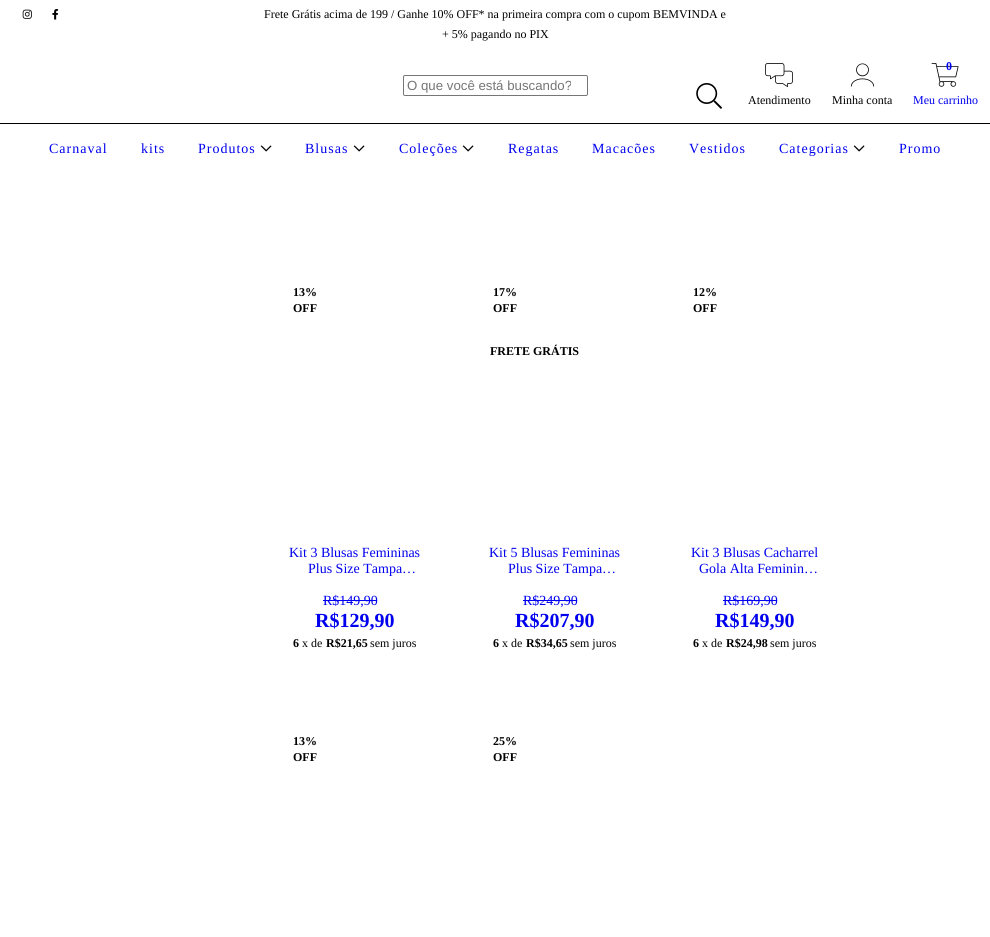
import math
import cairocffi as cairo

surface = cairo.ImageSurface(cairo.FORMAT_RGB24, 990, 937)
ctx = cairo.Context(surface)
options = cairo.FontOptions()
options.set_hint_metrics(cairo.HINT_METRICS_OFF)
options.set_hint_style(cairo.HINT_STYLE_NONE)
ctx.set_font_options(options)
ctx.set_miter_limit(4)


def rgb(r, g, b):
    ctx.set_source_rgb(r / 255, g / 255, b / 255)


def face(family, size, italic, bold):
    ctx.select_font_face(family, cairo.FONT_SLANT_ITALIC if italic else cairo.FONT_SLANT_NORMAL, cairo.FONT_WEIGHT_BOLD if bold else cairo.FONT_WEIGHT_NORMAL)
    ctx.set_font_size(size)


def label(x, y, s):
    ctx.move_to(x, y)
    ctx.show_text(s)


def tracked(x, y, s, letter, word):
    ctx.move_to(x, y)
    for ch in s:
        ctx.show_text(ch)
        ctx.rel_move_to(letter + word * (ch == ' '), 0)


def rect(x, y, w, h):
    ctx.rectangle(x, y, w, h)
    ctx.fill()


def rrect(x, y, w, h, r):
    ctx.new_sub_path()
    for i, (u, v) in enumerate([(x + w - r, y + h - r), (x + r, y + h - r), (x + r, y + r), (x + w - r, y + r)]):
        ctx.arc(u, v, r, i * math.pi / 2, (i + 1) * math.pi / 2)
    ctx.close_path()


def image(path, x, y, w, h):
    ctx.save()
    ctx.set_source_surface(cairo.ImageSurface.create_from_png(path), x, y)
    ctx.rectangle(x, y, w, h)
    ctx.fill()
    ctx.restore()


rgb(255, 255, 255)
ctx.paint()
image('image0.png', 22, 9, 10, 10)
image('image1.png', 52, 9, 7, 11)
face('Liberation Serif', 12, 0, 0)
rgb(0, 0, 0)
label(264, 18, 'Frete Grátis acima de 199 / Ganhe 10% OFF* na primeira compra com o cupom BEMVINDA e')
label(442, 38, '+ 5% pagando no PIX')
rrect(403.5, 75.5, 184, 20, 1.5)
rgb(118, 118, 118)
ctx.set_line_width(1)
ctx.stroke()
ctx.save()
ctx.rectangle(407, 78, 164, 15)
ctx.clip()
face('Liberation Sans', 13.25, 0, 0)
rgb(117, 117, 117)
label(407, 90, 'O que você está buscando?')
ctx.restore()
image('image2.png', 696, 83, 26, 26)
image('image3.png', 765, 63, 28, 24)
rgb(0, 0, 0)
label(748, 104, 'Atendimento')
image('image4.png', 850, 63, 25, 24)
label(832, 104, 'Minha conta')
image('image5.png', 931, 63, 28, 24)
face('Liberation Serif', 12, 0, 1)
rgb(0, 0, 238)
label(946, 70, '0')
face('Liberation Serif', 12, 0, 0)
label(913, 104, 'Meu carrinho')
rgb(0, 0, 0)
rect(0, 123, 990, 1)
face('Liberation Serif', 14, 0, 0)
rgb(0, 0, 238)
tracked(49, 153, 'Carnaval', 1, 0)
tracked(141, 153, 'kits', 1, 0)
tracked(198, 153, 'Produtos', 1, 0)
image('image6.png', 260, 145, 12, 7)
tracked(305, 153, 'Blusas', 1, 0)
image('image6.png', 353, 145, 12, 7)
tracked(399, 153, 'Coleções', 1, 0)
image('image6.png', 462, 145, 12, 7)
tracked(508, 153, 'Regatas', 1, 0)
tracked(592, 153, 'Macacões', 1, 0)
tracked(689, 153, 'Vestidos', 1, 0)
tracked(779, 153, 'Categorias', 1, 0)
image('image6.png', 853, 145, 12, 7)
tracked(899, 153, 'Promo', 1, 0)
face('Liberation Serif', 12, 0, 1)
rgb(0, 0, 0)
label(293, 296, '13%')
label(293, 312, 'OFF')
face('Liberation Serif', 14, 0, 0)
rgb(0, 0, 238)
label(289, 557, 'Kit 3 Blusas Femininas')
label(308, 573, 'Plus Size Tampa…')
label(323, 605, 'R$149,90')
rect(323, 600, 54, 1)
face('Liberation Serif', 20, 0, 1)
label(315, 627, 'R$129,90')
face('Liberation Serif', 12, 0, 1)
rgb(0, 0, 0)
label(293, 647, '6')
face('Liberation Serif', 12, 0, 0)
label(302, 647, 'x de')
face('Liberation Serif', 12, 0, 1)
label(326, 647, 'R$21,65')
face('Liberation Serif', 12, 0, 0)
label(370, 647, 'sem juros')
face('Liberation Serif', 12, 0, 1)
label(493, 296, '17%')
label(493, 312, 'OFF')
label(490, 355, 'FRETE GRÁTIS')
face('Liberation Serif', 14, 0, 0)
rgb(0, 0, 238)
label(489, 557, 'Kit 5 Blusas Femininas')
label(508, 573, 'Plus Size Tampa…')
label(523, 605, 'R$249,90')
rect(523, 600, 54, 1)
face('Liberation Serif', 20, 0, 1)
label(515, 627, 'R$207,90')
face('Liberation Serif', 12, 0, 1)
rgb(0, 0, 0)
label(493, 647, '6')
face('Liberation Serif', 12, 0, 0)
label(502, 647, 'x de')
face('Liberation Serif', 12, 0, 1)
label(526, 647, 'R$34,65')
face('Liberation Serif', 12, 0, 0)
label(570, 647, 'sem juros')
face('Liberation Serif', 12, 0, 1)
label(693, 296, '12%')
label(693, 312, 'OFF')
face('Liberation Serif', 14, 0, 0)
rgb(0, 0, 238)
label(691, 557, 'Kit 3 Blusas Cacharrel')
label(699, 573, 'Gola Alta Feminin…')
label(723, 605, 'R$169,90')
rect(723, 600, 54, 1)
face('Liberation Serif', 20, 0, 1)
label(715, 627, 'R$149,90')
face('Liberation Serif', 12, 0, 1)
rgb(0, 0, 0)
label(693, 647, '6')
face('Liberation Serif', 12, 0, 0)
label(702, 647, 'x de')
face('Liberation Serif', 12, 0, 1)
label(726, 647, 'R$24,98')
face('Liberation Serif', 12, 0, 0)
label(770, 647, 'sem juros')
face('Liberation Serif', 12, 0, 1)
label(293, 745, '13%')
label(293, 761, 'OFF')
label(493, 745, '25%')
label(493, 761, 'OFF')
surface.write_to_png('render.png')
